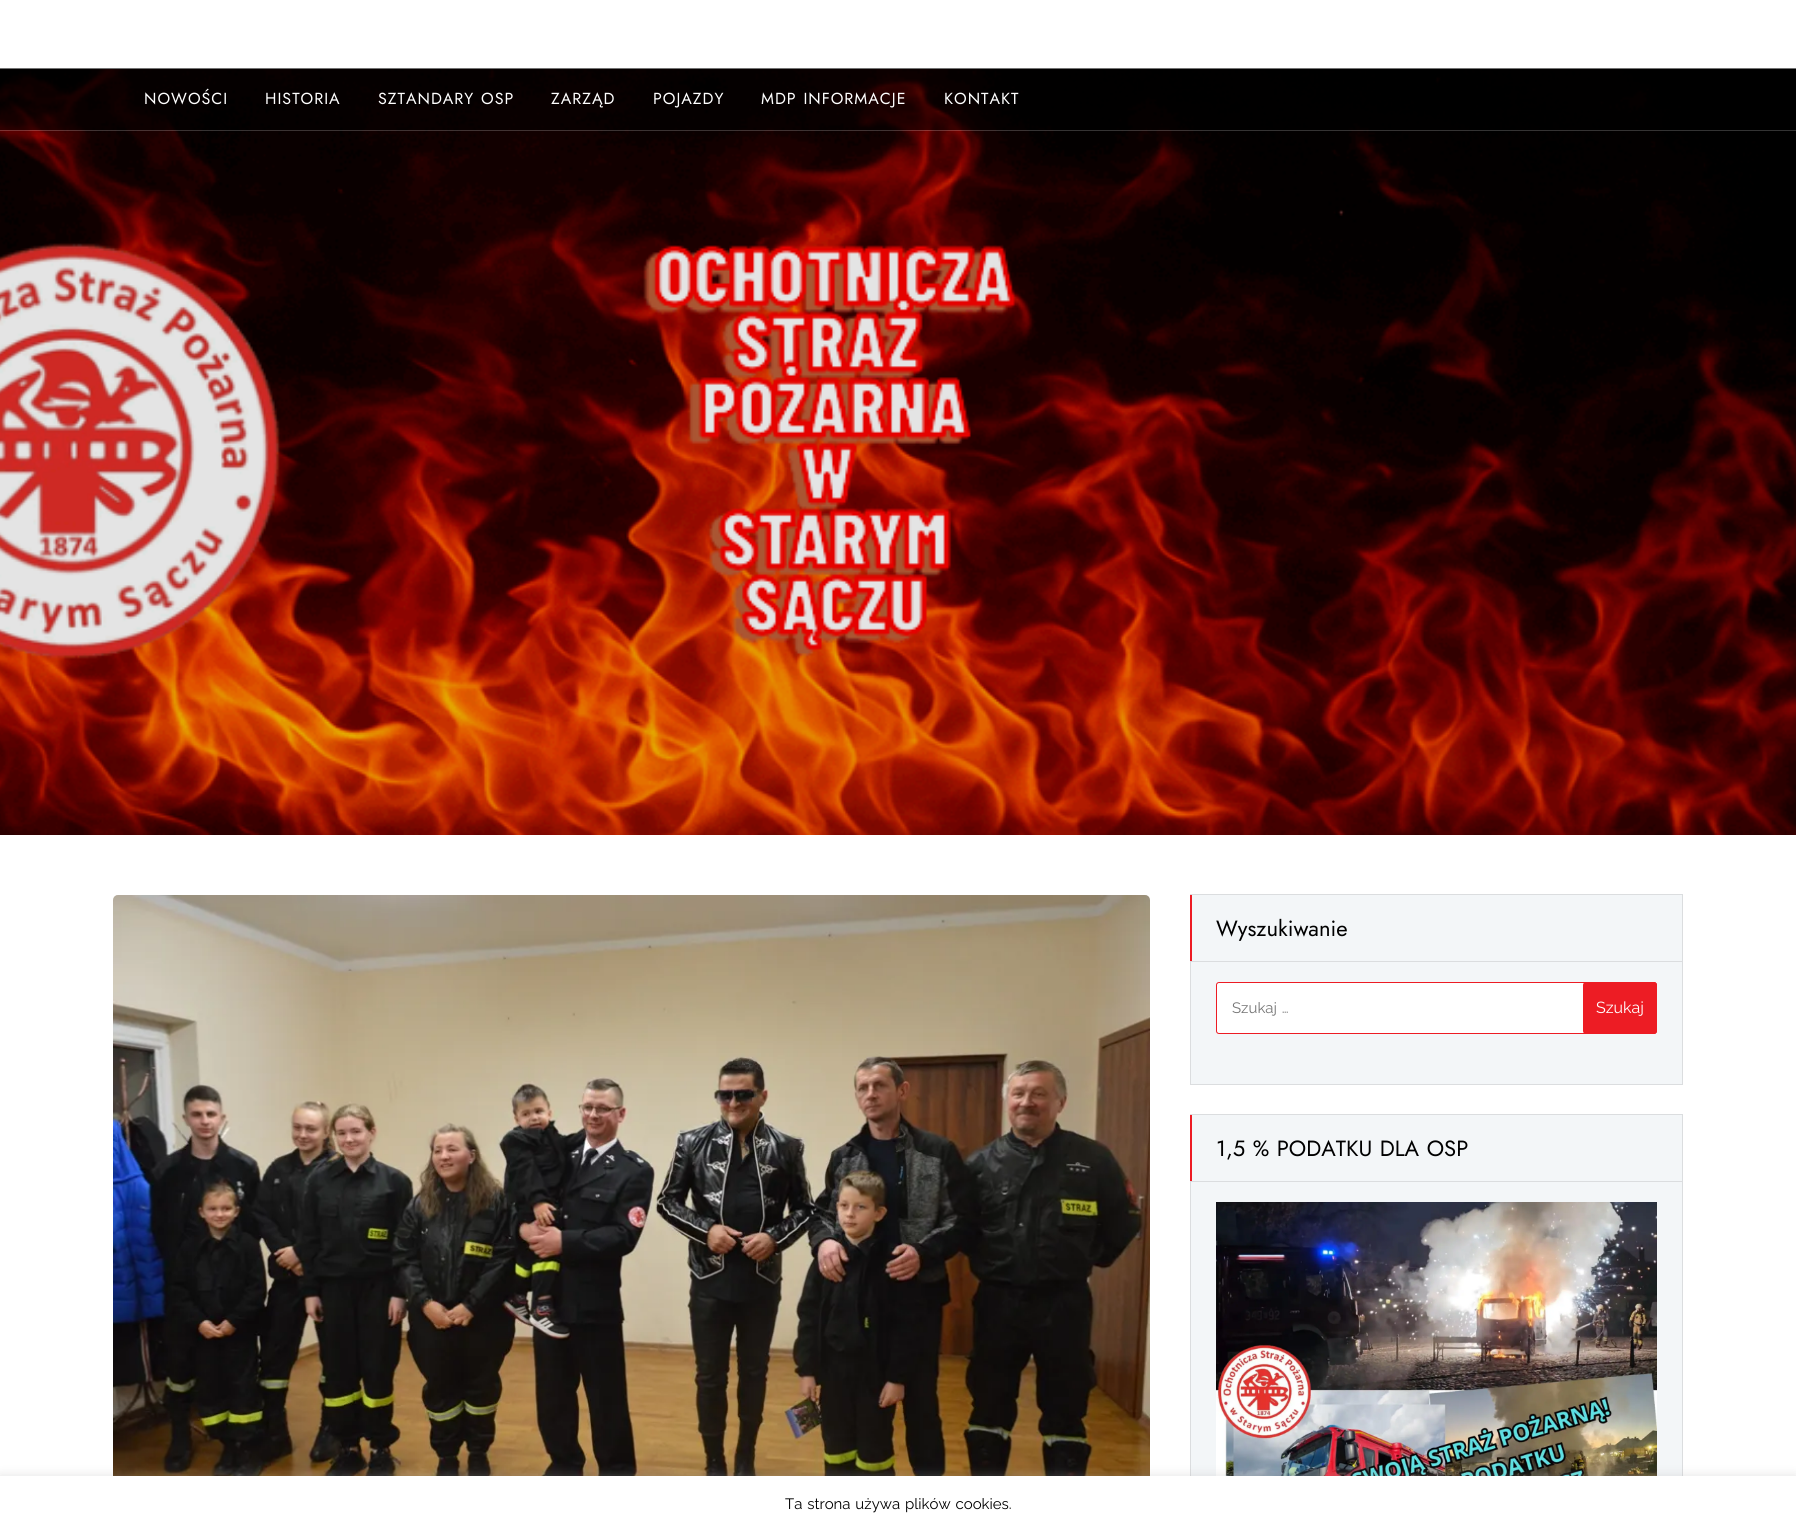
import math
import cairocffi as cairo

surface = cairo.ImageSurface(cairo.FORMAT_RGB24, 1796, 1531)
ctx = cairo.Context(surface)
options = cairo.FontOptions()
options.set_hint_metrics(cairo.HINT_METRICS_OFF)
options.set_hint_style(cairo.HINT_STYLE_NONE)
ctx.set_font_options(options)
ctx.set_miter_limit(4)


def rgb(r, g, b):
    ctx.set_source_rgb(r / 255, g / 255, b / 255)


def face(family, size, italic, bold):
    ctx.select_font_face(family, cairo.FONT_SLANT_ITALIC if italic else cairo.FONT_SLANT_NORMAL, cairo.FONT_WEIGHT_BOLD if bold else cairo.FONT_WEIGHT_NORMAL)
    ctx.set_font_size(size)


def label(x, y, s):
    ctx.move_to(x, y)
    ctx.show_text(s)


def tracked(x, y, s, letter, word):
    ctx.move_to(x, y)
    for ch in s:
        ctx.show_text(ch)
        ctx.rel_move_to(letter + word * (ch == ' '), 0)


def rect(x, y, w, h):
    ctx.rectangle(x, y, w, h)
    ctx.fill()


def rrect(x, y, w, h, r):
    ctx.new_sub_path()
    for i, (u, v) in enumerate([(x + w - r, y + h - r), (x + r, y + h - r), (x + r, y + r), (x + w - r, y + r)]):
        ctx.arc(u, v, r, i * math.pi / 2, (i + 1) * math.pi / 2)
    ctx.close_path()


def soft_shadow(x, y, w, h, r, blur, alpha):
    ctx.push_group_with_content(cairo.CONTENT_ALPHA)
    ctx.set_operator(cairo.OPERATOR_SOURCE)
    for i in range(15, -16, -2):
        e = blur * i / 6
        if min(w, h) + 2 * e > 0:
            ctx.set_source_rgba(0, 0, 0, alpha * math.erfc((i - 1) / 8.5) / 2)
            rrect(x - e, y - e, w + 2 * e, h + 2 * e, max(0, min(r + e + blur * .6, min(w, h) / 2 + e)))
            ctx.fill()
    ctx.mask(ctx.pop_group())


def image(path, x, y, w, h):
    ctx.save()
    ctx.set_source_surface(cairo.ImageSurface.create_from_png(path), x, y)
    ctx.rectangle(x, y, w, h)
    ctx.fill()
    ctx.restore()


rgb(255, 255, 255)
ctx.paint()
image('image0.png', 0, 69, 1796, 766)
rgb(229, 229, 229)
rect(0, 68, 1796, 1)
ctx.set_source_rgba(0, 0, 0, 0.5)
rect(0, 68, 1796, 62)
face('Jost', 16, 0, 0)
rgb(255, 255, 255)
tracked(144, 104, 'NOWOŚCI', 1, 0)
tracked(265, 104, 'HISTORIA', 1, 0)
tracked(378, 104, 'SZTANDARY OSP', 1, 1)
tracked(551, 104, 'ZARZĄD', 1, 0)
tracked(653, 104, 'POJAZDY', 1, 0)
tracked(761, 104, 'MDP INFORMACJE', 1, 1)
tracked(944, 104, 'KONTAKT', 1, 0)
ctx.set_source_rgba(1, 1, 1, 0.2)
rect(0, 130, 1796, 1)
image('image1.png', 113, 895, 1037, 581)
rgb(243, 246, 248)
ctx.rectangle(1190.5, 894.5, 492, 190)
ctx.fill_preserve()
rgb(219, 221, 223)
ctx.set_line_width(1)
ctx.stroke()
rect(1191, 961, 491, 1)
rgb(237, 28, 36)
rect(1190, 895, 2, 66)
face('Jost', 22, 0, 0)
rgb(0, 0, 0)
label(1216, 936, 'Wyszukiwanie')
rgb(255, 255, 255)
rrect(1216.5, 982.5, 440, 51, 2.5)
ctx.fill_preserve()
rgb(237, 28, 36)
ctx.stroke()
face('Raleway', 15, 0, 0)
rgb(117, 117, 117)
tracked(1232, 1013, 'Szukaj …', 0, 1)
rgb(237, 28, 36)
rrect(1583, 982, 74, 52, 3)
ctx.fill()
face('Raleway', 16, 0, 0)
rgb(255, 255, 255)
label(1596, 1013, 'Szukaj')
rgb(243, 246, 248)
rect(1191, 1115, 491, 361)
ctx.rectangle(1190.5, 1114.5, 492, 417)
rgb(219, 221, 223)
ctx.stroke()
rect(1191, 1181, 491, 1)
rgb(237, 28, 36)
rect(1190, 1115, 2, 66)
face('Jost', 22, 0, 0)
rgb(0, 0, 0)
tracked(1216, 1156, '1,5 % PODATKU DLA OSP', 0, 1)
image('image2.png', 1216, 1202, 441, 274)
rgb(172, 171, 171)
soft_shadow(0, 1475, 1796, 55, 0, 5, 0.3)
rgb(255, 255, 255)
rect(0, 1476, 1796, 55)
face('Raleway', 15, 0, 0)
rgb(0, 0, 0)
tracked(785, 1509, 'Ta strona używa plików cookies.', 0, 1)
surface.write_to_png('render.png')
